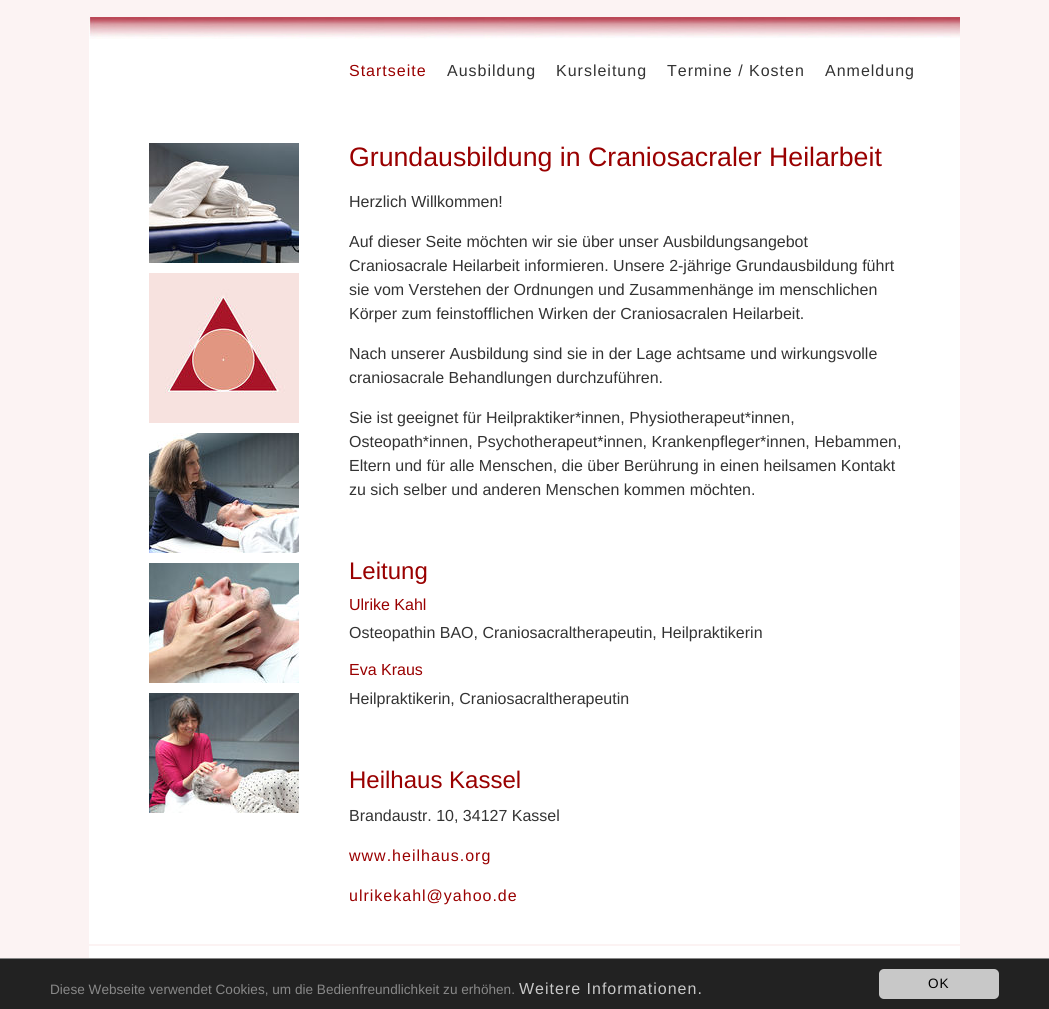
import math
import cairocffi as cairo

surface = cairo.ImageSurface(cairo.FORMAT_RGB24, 1049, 1009)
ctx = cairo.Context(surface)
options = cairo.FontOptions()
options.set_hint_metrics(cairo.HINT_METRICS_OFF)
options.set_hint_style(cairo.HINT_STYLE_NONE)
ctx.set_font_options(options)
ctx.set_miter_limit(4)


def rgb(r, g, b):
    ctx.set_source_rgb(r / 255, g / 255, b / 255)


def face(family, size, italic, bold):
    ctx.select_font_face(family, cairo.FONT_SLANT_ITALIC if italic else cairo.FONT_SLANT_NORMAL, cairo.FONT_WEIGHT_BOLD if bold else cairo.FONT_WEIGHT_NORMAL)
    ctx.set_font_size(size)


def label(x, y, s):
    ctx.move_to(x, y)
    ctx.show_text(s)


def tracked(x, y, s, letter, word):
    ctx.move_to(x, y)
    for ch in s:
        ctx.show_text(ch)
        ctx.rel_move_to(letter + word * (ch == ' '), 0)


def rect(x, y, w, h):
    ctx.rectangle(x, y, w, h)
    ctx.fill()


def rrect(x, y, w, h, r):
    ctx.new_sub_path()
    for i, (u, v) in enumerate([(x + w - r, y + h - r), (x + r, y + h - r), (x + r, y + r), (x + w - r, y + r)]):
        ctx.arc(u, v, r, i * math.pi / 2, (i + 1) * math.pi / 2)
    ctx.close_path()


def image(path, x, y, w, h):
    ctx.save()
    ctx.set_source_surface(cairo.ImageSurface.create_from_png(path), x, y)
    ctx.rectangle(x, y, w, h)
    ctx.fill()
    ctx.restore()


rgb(252, 243, 243)
ctx.paint()
image('image0.png', 89, 17, 871, 22)
rgb(255, 255, 255)
rect(89, 39, 871, 905)
face('Liberation Sans', 16, 0, 0)
rgb(153, 0, 0)
tracked(349, 76, 'Startseite', 1, 0)
rgb(51, 51, 51)
tracked(447, 76, 'Ausbildung', 1, 0)
tracked(556, 76, 'Kursleitung', 1, 0)
tracked(667, 76, 'Termine / Kosten', 1, 0)
tracked(825, 76, 'Anmeldung', 1, 0)
image('image1.png', 149, 143, 150, 120)
image('image2.png', 149, 273, 150, 150)
image('image3.png', 149, 433, 150, 120)
image('image4.png', 149, 563, 150, 120)
image('image5.png', 149, 693, 150, 120)
face('Liberation Sans', 26.7, 0, 0)
rgb(153, 0, 0)
label(349, 166, 'Grundausbildung in Craniosacraler Heilarbeit')
face('Liberation Sans', 16, 0, 0)
rgb(51, 51, 51)
label(349, 207, 'Herzlich Willkommen!')
label(349, 247, 'Auf dieser Seite möchten wir sie über unser Ausbildungsangebot')
label(349, 271, 'Craniosacrale Heilarbeit informieren. Unsere 2-jährige Grundausbildung führt')
label(349, 295, 'sie vom Verstehen der Ordnungen und Zusammenhänge im menschlichen')
label(349, 319, 'Körper zum feinstofflichen Wirken der Craniosacralen Heilarbeit.')
label(349, 359, 'Nach unserer Ausbildung sind sie in der Lage achtsame und wirkungsvolle')
label(349, 383, 'craniosacrale Behandlungen durchzuführen.')
label(349, 423, 'Sie ist geeignet für Heilpraktiker*innen, Physiotherapeut*innen,')
label(349, 447, 'Osteopath*innen, Psychotherapeut*innen, Krankenpfleger*innen, Hebammen,')
label(349, 471, 'Eltern und für alle Menschen, die über Berührung in einen heilsamen Kontakt')
label(349, 495, 'zu sich selber und anderen Menschen kommen möchten.')
face('Liberation Sans', 24, 0, 0)
rgb(153, 0, 0)
label(349, 579, 'Leitung')
face('Liberation Sans', 16, 0, 0)
label(349, 610, 'Ulrike Kahl')
rgb(51, 51, 51)
label(349, 638, 'Osteopathin BAO, Craniosacraltherapeutin, Heilpraktikerin')
rgb(153, 0, 0)
label(349, 675, 'Eva Kraus')
rgb(51, 51, 51)
label(349, 704, 'Heilpraktikerin, Craniosacraltherapeutin')
face('Liberation Sans', 24, 0, 0)
rgb(153, 0, 0)
label(349, 788, 'Heilhaus Kassel')
face('Liberation Sans', 16, 0, 0)
rgb(51, 51, 51)
label(349, 821, 'Brandaustr. 10, 34127 Kassel')
rgb(153, 0, 0)
tracked(349, 861, 'www.heilhaus.org', 1, 0)
tracked(349, 901, 'ulrikekahl@yahoo.de', 1, 0)
rgb(255, 255, 255)
rect(89, 946, 871, 12)
rgb(34, 34, 34)
rect(0, 959, 1049, 50)
rgb(136, 136, 136)
rect(0, 958, 1049, 1)
face('Liberation Sans', 13.6, 0, 0)
label(50, 994, 'Diese Webseite verwendet Cookies, um die Bedienfreundlichkeit zu erhöhen.')
face('Liberation Sans', 16, 0, 0)
rgb(200, 200, 200)
tracked(519, 994, 'Weitere Informationen.', 1, 0)
rrect(879, 969, 120, 30, 5)
ctx.fill()
face('Liberation Sans', 13.6, 0, 0)
rgb(0, 0, 0)
tracked(928, 988, 'OK', 1, 0)
surface.write_to_png('render.png')
